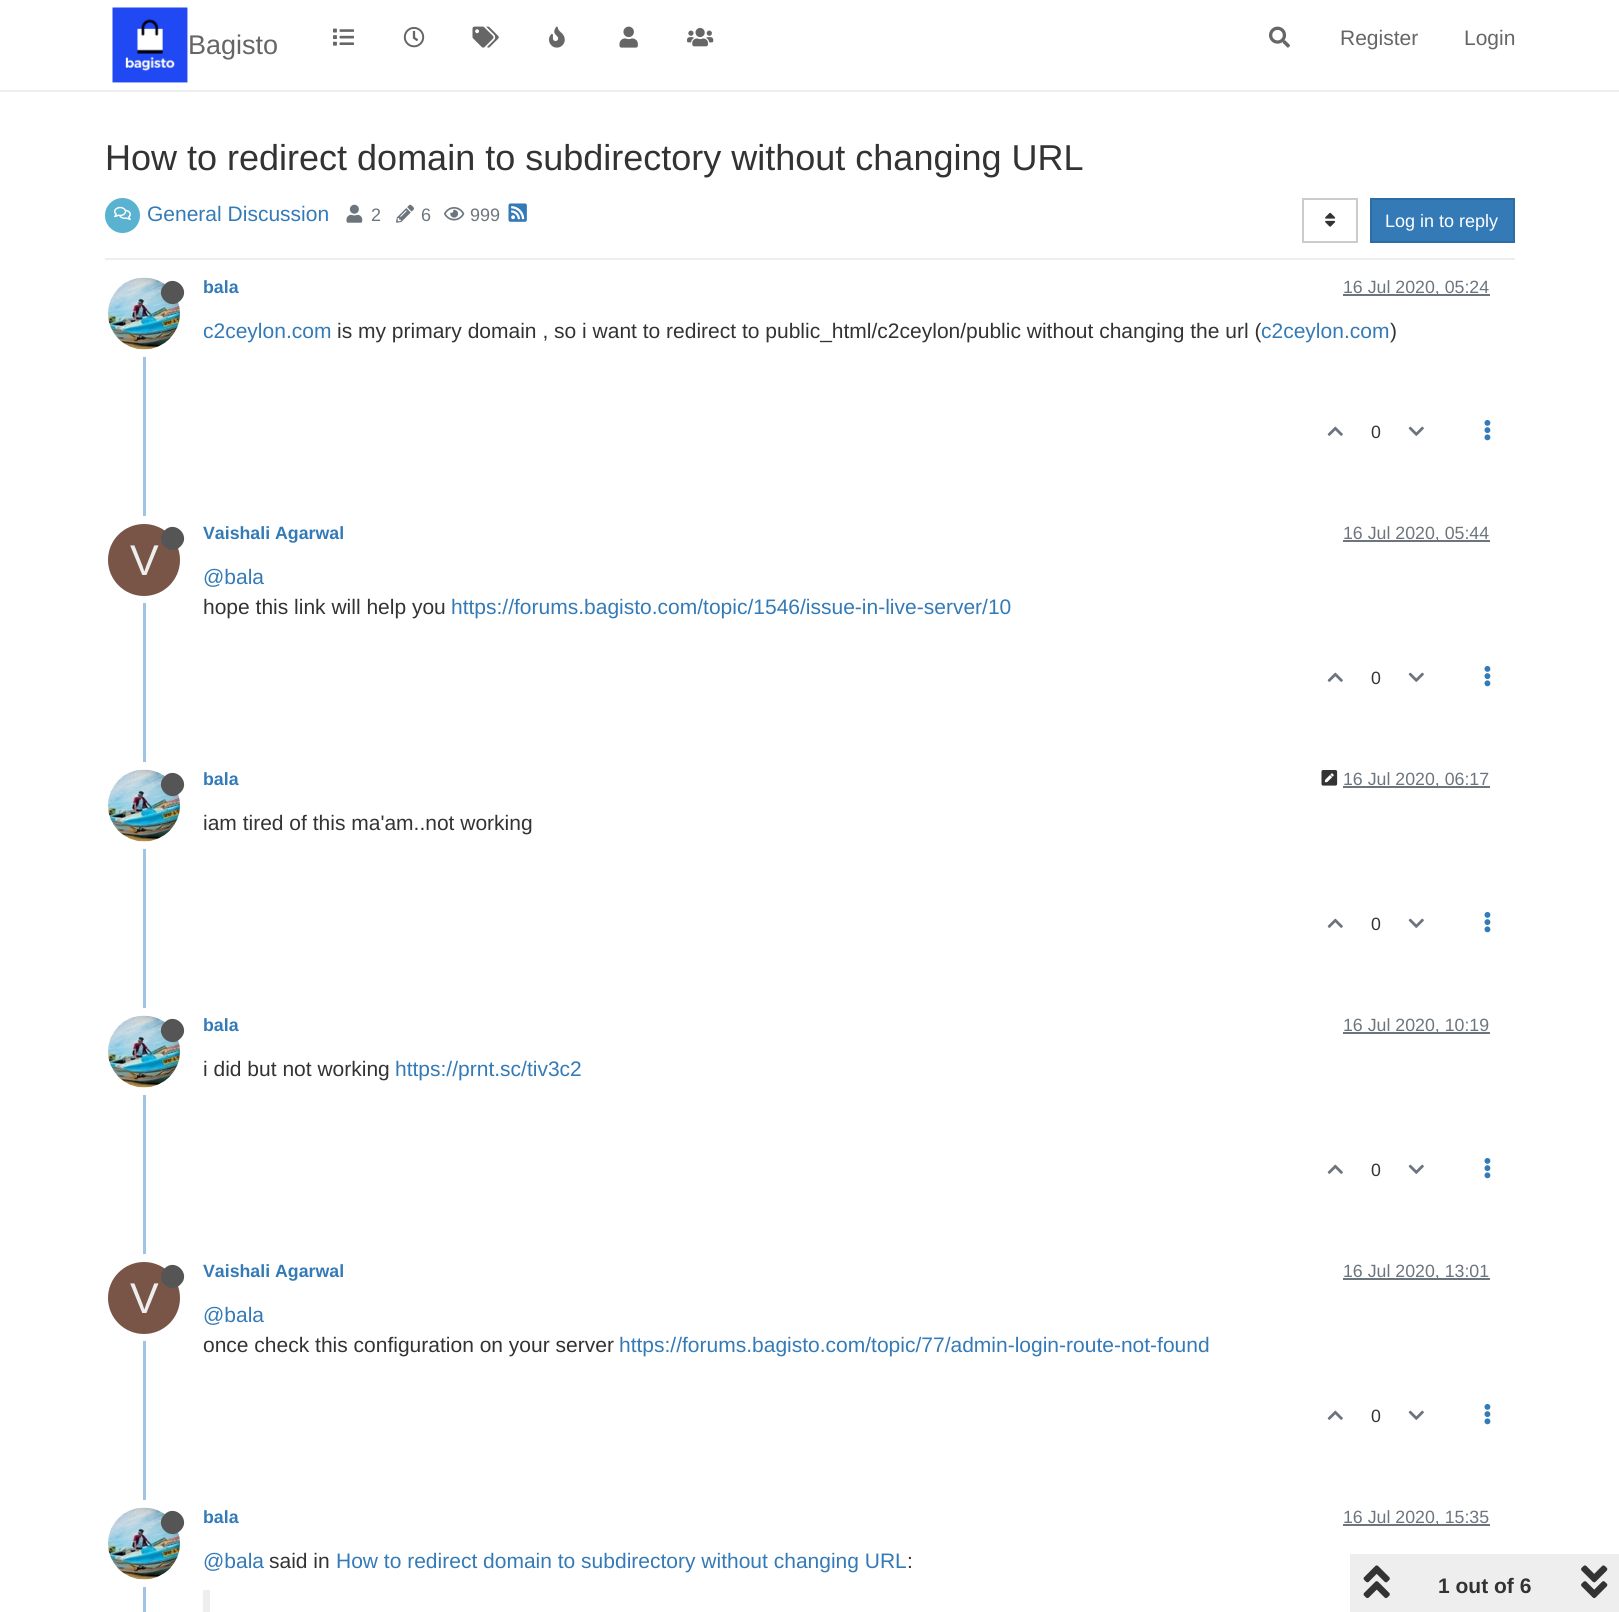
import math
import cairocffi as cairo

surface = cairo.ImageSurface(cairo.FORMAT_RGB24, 1619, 1612)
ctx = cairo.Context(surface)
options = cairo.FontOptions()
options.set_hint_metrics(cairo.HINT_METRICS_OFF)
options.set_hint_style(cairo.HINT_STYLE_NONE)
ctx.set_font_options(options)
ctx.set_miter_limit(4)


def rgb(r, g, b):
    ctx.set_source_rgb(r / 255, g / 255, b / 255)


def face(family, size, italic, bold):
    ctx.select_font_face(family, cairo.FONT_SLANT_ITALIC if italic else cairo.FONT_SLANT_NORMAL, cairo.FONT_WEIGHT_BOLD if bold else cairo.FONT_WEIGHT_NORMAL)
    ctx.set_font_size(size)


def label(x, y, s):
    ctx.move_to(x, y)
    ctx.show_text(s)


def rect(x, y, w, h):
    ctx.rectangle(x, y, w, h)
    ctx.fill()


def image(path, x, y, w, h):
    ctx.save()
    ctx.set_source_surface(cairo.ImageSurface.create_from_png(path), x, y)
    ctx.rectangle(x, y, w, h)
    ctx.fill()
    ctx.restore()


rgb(255, 255, 255)
ctx.paint()
rgb(238, 238, 238)
rect(0, 90, 1619, 2)
image('image0.png', 112, 7, 76, 76)
face('Liberation Sans', 27, 0, 0)
rgb(102, 102, 102)
label(188, 54, 'Bagisto')
image('image1.png', 333, 28, 21, 18)
image('image2.png', 403, 27, 22, 21)
image('image3.png', 472, 26, 27, 22)
image('image4.png', 549, 26, 16, 22)
image('image5.png', 619, 26, 19, 22)
image('image6.png', 687, 27, 27, 20)
image('image7.png', 1269, 26, 21, 22)
face('Liberation Sans', 21, 0, 0)
label(1340, 45, 'Register')
label(1464, 45, 'Login')
face('Liberation Sans', 36, 0, 0)
rgb(51, 51, 51)
label(105, 170, 'How to redirect domain to subdirectory without changing URL')
rgb(238, 238, 238)
rect(105, 258, 1410, 2)
rgb(89, 179, 208)
ctx.new_path()
ctx.arc(122.5, 215.5, 17.5, 0, 2 * math.pi)
ctx.fill()
image('image8.png', 114, 206, 17, 14)
face('Liberation Sans', 21, 0, 0)
rgb(51, 122, 183)
label(147, 221, 'General Discussion')
image('image9.png', 346, 204, 17, 19)
face('Liberation Sans', 18, 0, 0)
rgb(108, 117, 125)
label(371, 221, '2')
image('image10.png', 396, 204, 18, 19)
label(421, 221, '6')
image('image11.png', 444, 207, 21, 14)
label(470, 221, '999')
image('image12.png', 508, 203, 19, 19)
ctx.rectangle(1303, 199, 54, 43)
rgb(204, 204, 204)
ctx.stroke()
image('image13.png', 1325, 212, 11, 15)
rgb(51, 122, 183)
ctx.rectangle(1371, 199, 143, 43)
ctx.fill_preserve()
rgb(46, 109, 164)
ctx.stroke()
rgb(255, 255, 255)
label(1385, 227, 'Log in to reply')
rgb(160, 196, 228)
rect(143, 356, 3, 1256)
ctx.new_path()
ctx.arc(144.5, 313.5, 39.5, 0, 2 * math.pi)
rgb(255, 255, 255)
ctx.set_line_width(8)
ctx.stroke()
image('image14.png', 108, 277, 72, 73)
rgb(85, 85, 85)
ctx.new_path()
ctx.move_to(164.5, 284.5)
ctx.curve_to(175, 273.5, 191.5, 290, 180.5, 300.5)
ctx.curve_to(170, 311.5, 153.5, 295, 164.5, 284.5)
ctx.close_path()
ctx.fill()
face('Liberation Sans', 17.75, 0, 1)
rgb(51, 122, 183)
label(203, 293, 'bala')
rgb(108, 117, 125)
rect(1343, 294, 147, 2)
face('Liberation Sans', 17.75, 0, 0)
label(1343, 293, '16 Jul 2020, 05:24')
face('Liberation Sans', 21, 0, 0)
rgb(51, 122, 183)
label(203, 338, 'c2ceylon.com')
rgb(51, 51, 51)
label(337, 338, 'is my primary domain , so i want to redirect to public_html/c2ceylon/public without changing the url (')
rgb(51, 122, 183)
label(1261, 338, 'c2ceylon.com')
rgb(51, 51, 51)
label(1390, 338, ')')
image('image15.png', 1327, 426, 16, 10)
face('Liberation Sans', 17.75, 0, 0)
label(1371, 438, '0')
image('image16.png', 1408, 426, 16, 10)
image('image17.png', 1484, 420, 7, 21)
face('Liberation Sans', 17.75, 0, 1)
rgb(51, 122, 183)
label(203, 539, 'Vaishali Agarwal')
rgb(108, 117, 125)
rect(1343, 540, 147, 2)
face('Liberation Sans', 17.75, 0, 0)
label(1343, 539, '16 Jul 2020, 05:44')
ctx.new_path()
ctx.arc(144.5, 559.5, 39.5, 0, 2 * math.pi)
rgb(255, 255, 255)
ctx.stroke()
rgb(121, 85, 72)
ctx.arc(144, 560, 36, 0, 2 * math.pi)
ctx.fill()
rgb(85, 85, 85)
ctx.new_path()
ctx.move_to(164.5, 530.5)
ctx.curve_to(175, 519.5, 191.5, 536, 180.5, 546.5)
ctx.curve_to(170, 557.5, 153.5, 541, 164.5, 530.5)
ctx.close_path()
ctx.fill()
face('Liberation Sans', 43, 0, 0)
rgb(238, 238, 238)
label(130, 575, 'V')
face('Liberation Sans', 21, 0, 0)
rgb(51, 122, 183)
label(203, 584, '@bala')
rgb(51, 51, 51)
label(203, 614, 'hope this link will help you')
rgb(51, 122, 183)
label(451, 614, 'https://forums.bagisto.com/topic/1546/issue-in-live-server/10')
image('image15.png', 1327, 672, 16, 10)
face('Liberation Sans', 17.75, 0, 0)
rgb(51, 51, 51)
label(1371, 684, '0')
image('image16.png', 1408, 672, 16, 10)
image('image17.png', 1484, 666, 7, 21)
ctx.arc(144.5, 805.5, 39.5, 0, 2 * math.pi)
rgb(255, 255, 255)
ctx.stroke()
image('image14.png', 108, 769, 72, 73)
rgb(85, 85, 85)
ctx.new_path()
ctx.move_to(164.5, 776.5)
ctx.curve_to(175, 765.5, 191.5, 782, 180.5, 792.5)
ctx.curve_to(170, 803.5, 153.5, 787, 164.5, 776.5)
ctx.close_path()
ctx.fill()
face('Liberation Sans', 17.75, 0, 1)
rgb(51, 122, 183)
label(203, 785, 'bala')
image('image18.png', 1321, 770, 17, 16)
rgb(108, 117, 125)
rect(1343, 786, 147, 2)
face('Liberation Sans', 17.75, 0, 0)
label(1343, 785, '16 Jul 2020, 06:17')
face('Liberation Sans', 21, 0, 0)
rgb(51, 51, 51)
label(203, 830, 'iam tired of this ma\'am..not working')
image('image15.png', 1327, 918, 16, 10)
face('Liberation Sans', 17.75, 0, 0)
label(1371, 930, '0')
image('image16.png', 1408, 918, 16, 10)
image('image17.png', 1484, 912, 7, 21)
ctx.arc(144.5, 1051.5, 39.5, 0, 2 * math.pi)
rgb(255, 255, 255)
ctx.stroke()
image('image19.png', 108, 1015, 72, 73)
rgb(85, 85, 85)
ctx.new_path()
ctx.move_to(164.5, 1022.5)
ctx.curve_to(175, 1011.5, 191.5, 1028, 180.5, 1038.5)
ctx.curve_to(170, 1049.5, 153.5, 1033, 164.5, 1022.5)
ctx.close_path()
ctx.fill()
face('Liberation Sans', 17.75, 0, 1)
rgb(51, 122, 183)
label(203, 1031, 'bala')
rgb(108, 117, 125)
rect(1343, 1032, 147, 2)
face('Liberation Sans', 17.75, 0, 0)
label(1343, 1031, '16 Jul 2020, 10:19')
face('Liberation Sans', 21, 0, 0)
rgb(51, 51, 51)
label(203, 1076, 'i did but not working')
rgb(51, 122, 183)
label(395, 1076, 'https://prnt.sc/tiv3c2')
image('image15.png', 1327, 1164, 16, 10)
face('Liberation Sans', 17.75, 0, 0)
rgb(51, 51, 51)
label(1371, 1176, '0')
image('image16.png', 1408, 1164, 16, 10)
image('image17.png', 1484, 1158, 7, 21)
face('Liberation Sans', 17.75, 0, 1)
rgb(51, 122, 183)
label(203, 1277, 'Vaishali Agarwal')
rgb(108, 117, 125)
rect(1343, 1278, 147, 2)
face('Liberation Sans', 17.75, 0, 0)
label(1343, 1277, '16 Jul 2020, 13:01')
ctx.new_path()
ctx.arc(144.5, 1297.5, 39.5, 0, 2 * math.pi)
rgb(255, 255, 255)
ctx.stroke()
rgb(121, 85, 72)
ctx.arc(144, 1298, 36, 0, 2 * math.pi)
ctx.fill()
rgb(85, 85, 85)
ctx.new_path()
ctx.move_to(164.5, 1268.5)
ctx.curve_to(175, 1257.5, 191.5, 1274, 180.5, 1284.5)
ctx.curve_to(170, 1295.5, 153.5, 1279, 164.5, 1268.5)
ctx.close_path()
ctx.fill()
face('Liberation Sans', 43, 0, 0)
rgb(238, 238, 238)
label(130, 1313, 'V')
face('Liberation Sans', 21, 0, 0)
rgb(51, 122, 183)
label(203, 1322, '@bala')
rgb(51, 51, 51)
label(203, 1352, 'once check this configuration on your server')
rgb(51, 122, 183)
label(619, 1352, 'https://forums.bagisto.com/topic/77/admin-login-route-not-found')
image('image15.png', 1327, 1410, 16, 10)
face('Liberation Sans', 17.75, 0, 0)
rgb(51, 51, 51)
label(1371, 1422, '0')
image('image16.png', 1408, 1410, 16, 10)
image('image17.png', 1484, 1404, 7, 21)
ctx.arc(144.5, 1543.5, 39.5, 0, 2 * math.pi)
rgb(255, 255, 255)
ctx.stroke()
image('image20.png', 108, 1507, 72, 73)
rgb(85, 85, 85)
ctx.new_path()
ctx.move_to(164.5, 1514.5)
ctx.curve_to(175, 1503.5, 191.5, 1520, 180.5, 1530.5)
ctx.curve_to(170, 1541.5, 153.5, 1525, 164.5, 1514.5)
ctx.close_path()
ctx.fill()
face('Liberation Sans', 17.75, 0, 1)
rgb(51, 122, 183)
label(203, 1523, 'bala')
rgb(108, 117, 125)
rect(1343, 1524, 147, 2)
face('Liberation Sans', 17.75, 0, 0)
label(1343, 1523, '16 Jul 2020, 15:35')
face('Liberation Sans', 21, 0, 0)
rgb(51, 122, 183)
label(203, 1568, '@bala')
rgb(51, 51, 51)
label(269, 1568, 'said in')
rgb(51, 122, 183)
label(336, 1568, 'How to redirect domain to subdirectory without changing URL')
rgb(51, 51, 51)
label(907, 1568, ':')
rgb(238, 238, 238)
rect(203, 1590, 7, 22)
rect(1350, 1554, 269, 58)
image('image21.png', 1363, 1565, 27, 34)
face('Liberation Sans', 21, 0, 1)
rgb(51, 51, 51)
label(1438, 1593, '1 out of 6')
image('image22.png', 1581, 1565, 27, 34)
surface.write_to_png('render.png')
